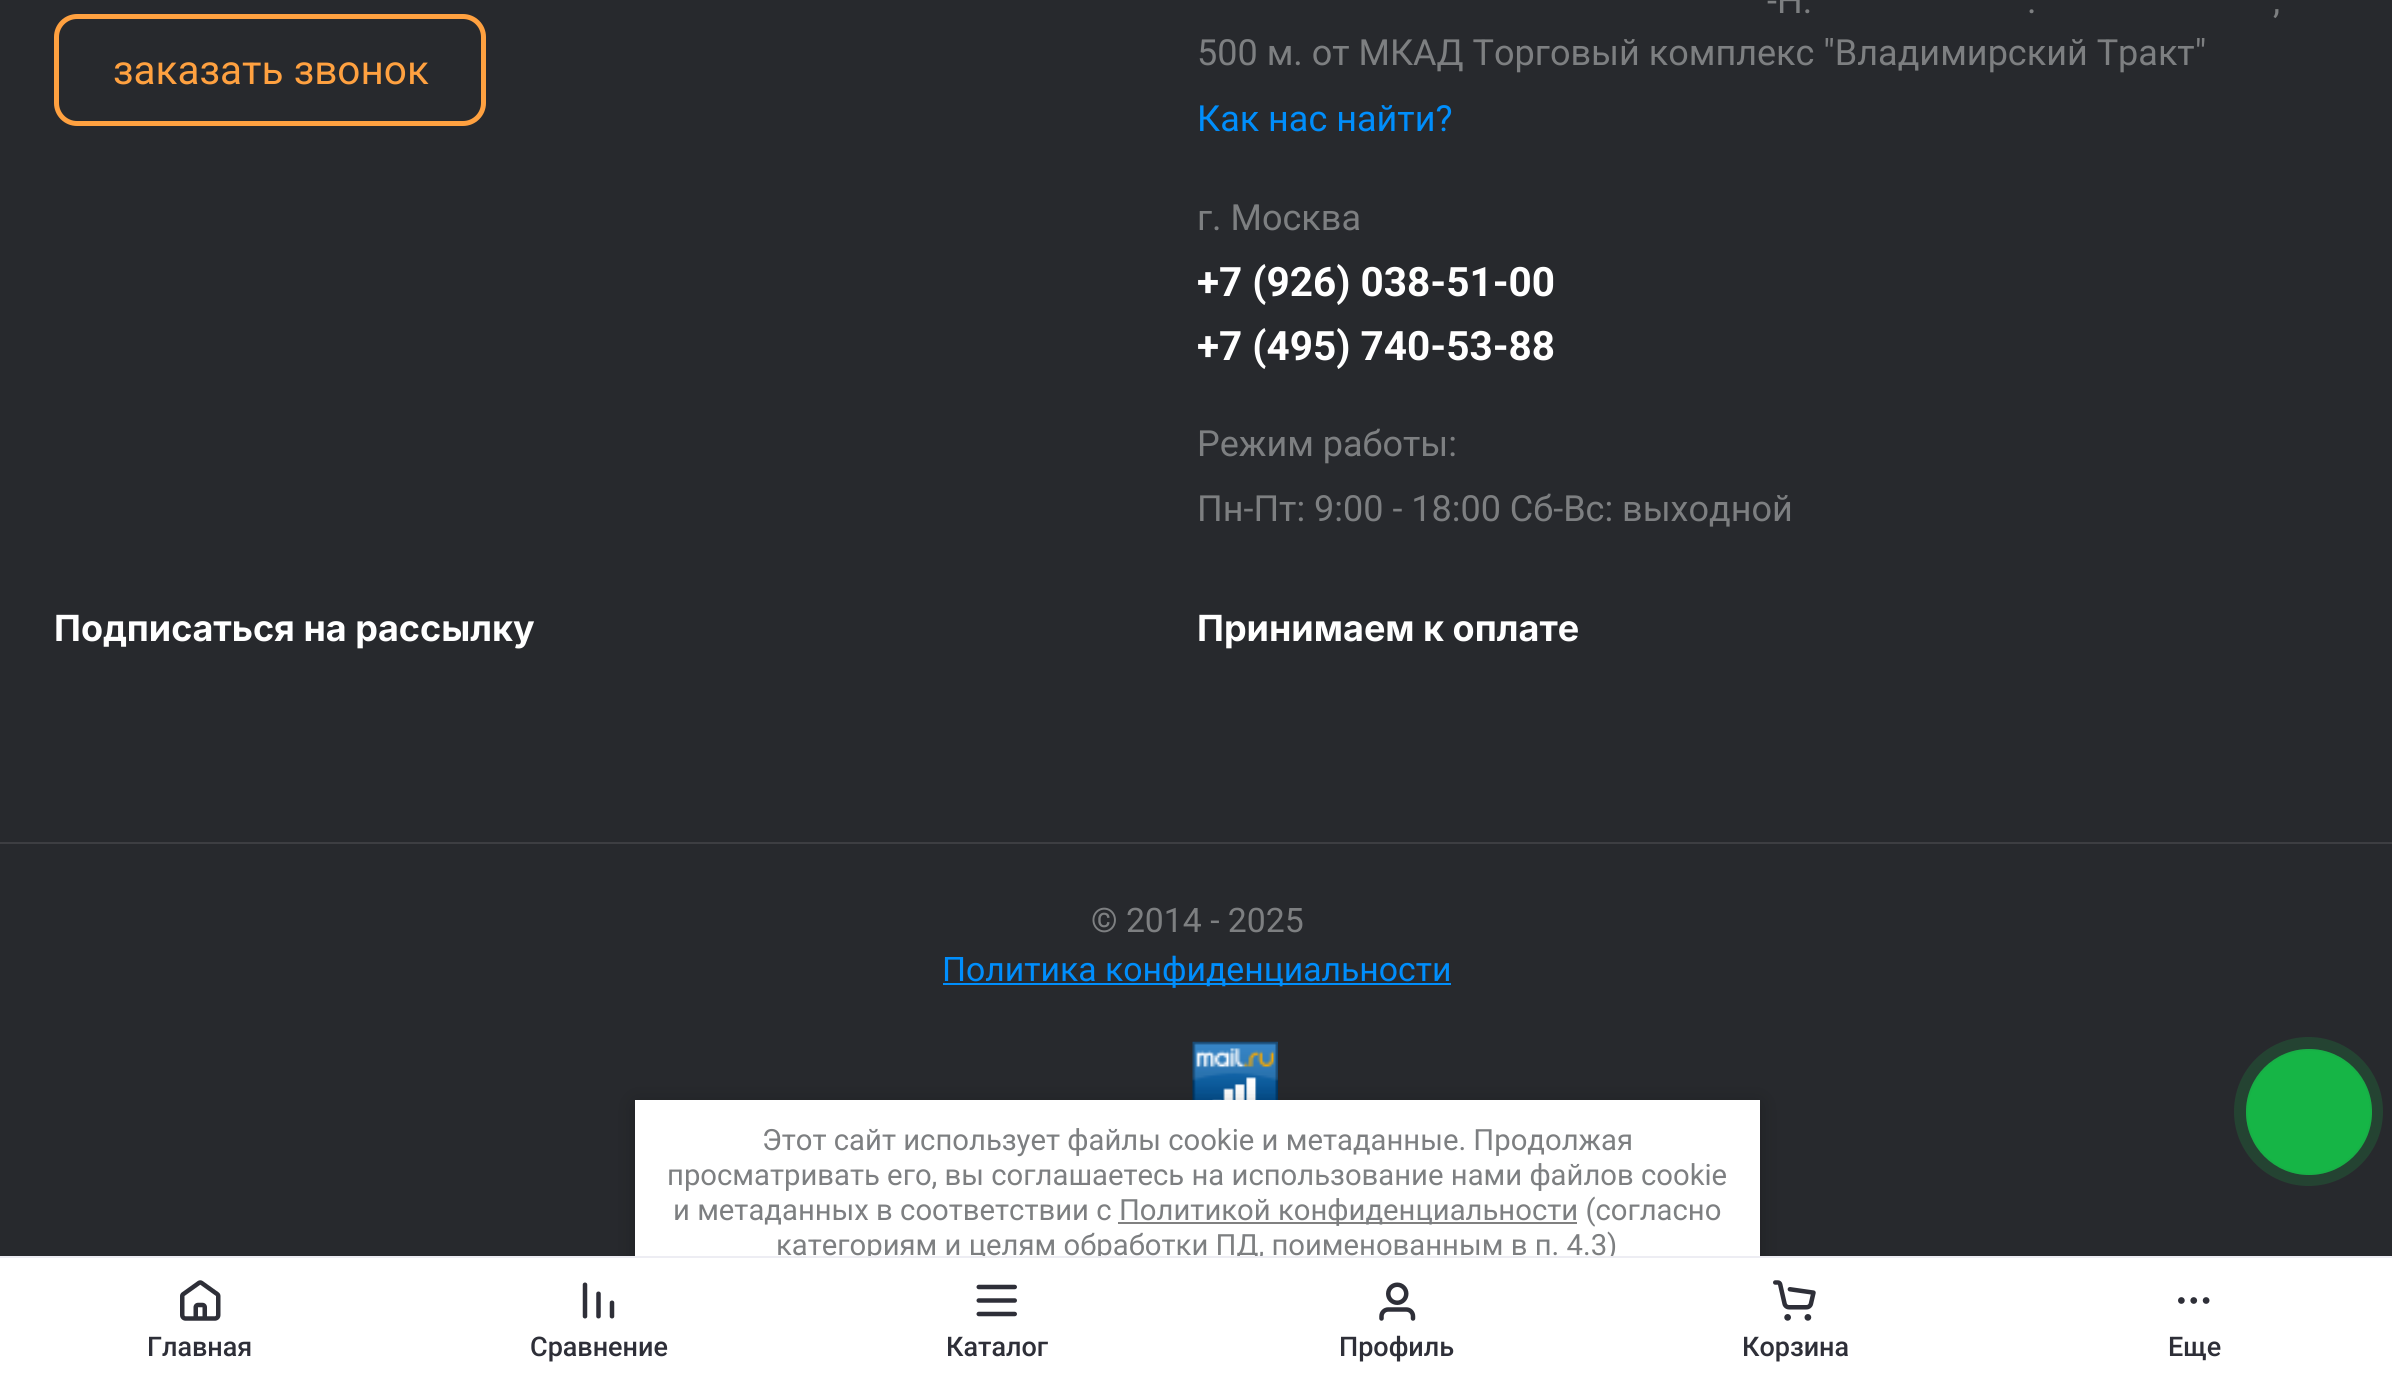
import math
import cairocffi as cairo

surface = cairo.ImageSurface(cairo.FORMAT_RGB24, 2392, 1389)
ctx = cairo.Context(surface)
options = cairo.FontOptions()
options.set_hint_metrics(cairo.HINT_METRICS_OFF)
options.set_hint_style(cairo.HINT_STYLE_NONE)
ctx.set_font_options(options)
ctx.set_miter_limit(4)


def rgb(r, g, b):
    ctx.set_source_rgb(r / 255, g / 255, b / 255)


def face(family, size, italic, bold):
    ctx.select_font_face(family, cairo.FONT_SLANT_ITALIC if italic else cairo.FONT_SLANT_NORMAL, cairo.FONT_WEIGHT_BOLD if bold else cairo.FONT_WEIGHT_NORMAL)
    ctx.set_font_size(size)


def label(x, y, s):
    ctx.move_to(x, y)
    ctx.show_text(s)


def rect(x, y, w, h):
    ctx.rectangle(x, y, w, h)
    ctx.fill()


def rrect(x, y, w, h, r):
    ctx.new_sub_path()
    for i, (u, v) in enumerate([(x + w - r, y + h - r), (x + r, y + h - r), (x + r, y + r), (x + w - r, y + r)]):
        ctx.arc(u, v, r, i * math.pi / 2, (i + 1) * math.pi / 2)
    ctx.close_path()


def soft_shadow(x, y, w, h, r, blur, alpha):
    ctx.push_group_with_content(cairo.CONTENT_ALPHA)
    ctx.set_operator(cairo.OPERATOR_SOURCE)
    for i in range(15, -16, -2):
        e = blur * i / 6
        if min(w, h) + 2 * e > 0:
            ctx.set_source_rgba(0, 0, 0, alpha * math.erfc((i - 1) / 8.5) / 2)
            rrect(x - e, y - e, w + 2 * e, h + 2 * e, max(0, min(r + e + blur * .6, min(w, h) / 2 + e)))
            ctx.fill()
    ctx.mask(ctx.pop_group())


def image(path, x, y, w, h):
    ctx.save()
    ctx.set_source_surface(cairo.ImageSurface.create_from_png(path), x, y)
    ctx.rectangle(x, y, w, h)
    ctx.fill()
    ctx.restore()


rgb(39, 41, 45)
ctx.paint()
rgb(61, 62, 66)
rect(0, 842, 2392, 2)
rrect(56.5, 16.5, 427, 107, 20.5)
rgb(255, 161, 64)
ctx.set_line_width(5)
ctx.stroke()
face('Roboto', 40.5, 0, 0)
label(113, 84, 'заказать звонок')
face('Roboto', 36, 0, 0)
rgb(125, 127, 129)
label(1767, 13, '-Н.')
label(2027, 13, '.')
label(2273, 13, ',')
label(1197, 65, '500 м. от МКАД Торговый комплекс "Владимирский Тракт"')
rgb(0, 142, 252)
label(1197, 131, 'Как нас найти?')
rgb(125, 127, 129)
label(1197, 230, 'г. Москва')
face('Roboto', 40.5, 0, 1)
rgb(255, 255, 255)
label(1197, 296, '+7 (926) 038-51-00')
label(1197, 360, '+7 (495) 740-53-88')
face('Roboto', 36, 0, 0)
rgb(125, 127, 129)
label(1197, 456, 'Режим работы:')
label(1197, 521, 'Пн-Пт: 9:00 - 18:00 Сб-Вс: выходной')
face('Inter', 36, 0, 1)
rgb(255, 255, 255)
label(54, 641, 'Подписаться на рассылку')
label(1197, 641, 'Принимаем к оплате')
face('Roboto', 33.75, 0, 0)
rgb(125, 127, 129)
label(1091, 932, '© 2014 - 2025')
rgb(0, 142, 252)
rect(943, 983, 508, 2)
label(942, 981, 'Политика конфиденциальности')
image('image0.png', 1192, 1041, 86, 59)
rgb(0, 0, 0)
soft_shadow(635, 1103, 1125, 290, 0, 11, 0.23)
rgb(255, 255, 255)
rect(635, 1100, 1125, 156)
face('Roboto', 29.25, 0, 0)
rgb(125, 127, 129)
label(776, 1255, 'категориям и целям обработки ПД, поименованным в п. 4.3)')
rgb(255, 255, 255)
rect(0, 1258, 2392, 131)
rgb(237, 237, 243)
rect(0, 1256, 2392, 2)
image('image1.png', 180, 1280, 41, 41)
face('Roboto Medium', 27, 0, 0)
rgb(46, 47, 56)
label(147, 1356, 'Главная')
image('image2.png', 582, 1282, 33, 37)
label(530, 1356, 'Сравнение')
image('image3.png', 976, 1284, 41, 33)
label(946, 1356, 'Каталог')
image('image4.png', 1379, 1282, 37, 39)
label(1339, 1356, 'Профиль')
image('image5.png', 1773, 1280, 43, 41)
label(1742, 1356, 'Корзина')
image('image6.png', 2178, 1297, 32, 7)
label(2168, 1356, 'Еще')
rgb(21, 187, 71)
ctx.new_path()
ctx.arc(2309, 1112, 63, 0, 2 * math.pi)
ctx.fill()
ctx.set_source_rgba(0.11, 0.639, 0.271, 0.22)
ctx.arc(2308.5, 1111.5, 74.5, 0, 2 * math.pi)
ctx.fill()
ctx.arc(2309, 1112, 62, 0, 2 * math.pi)
ctx.set_line_width(2)
ctx.stroke()
face('Roboto', 29.25, 0, 0)
rgb(125, 127, 129)
label(762, 1150, 'Этот сайт использует файлы cookie и метаданные. Продолжая')
label(667, 1185, 'просматривать его, вы соглашаетесь на использование нами файлов cookie')
label(673, 1220, 'и метаданных в соответствии с')
rgb(128, 128, 128)
rect(1118, 1222, 459, 2)
rgb(125, 127, 129)
label(1119, 1220, 'Политикой конфиденциальности (согласно')
surface.write_to_png('render.png')
